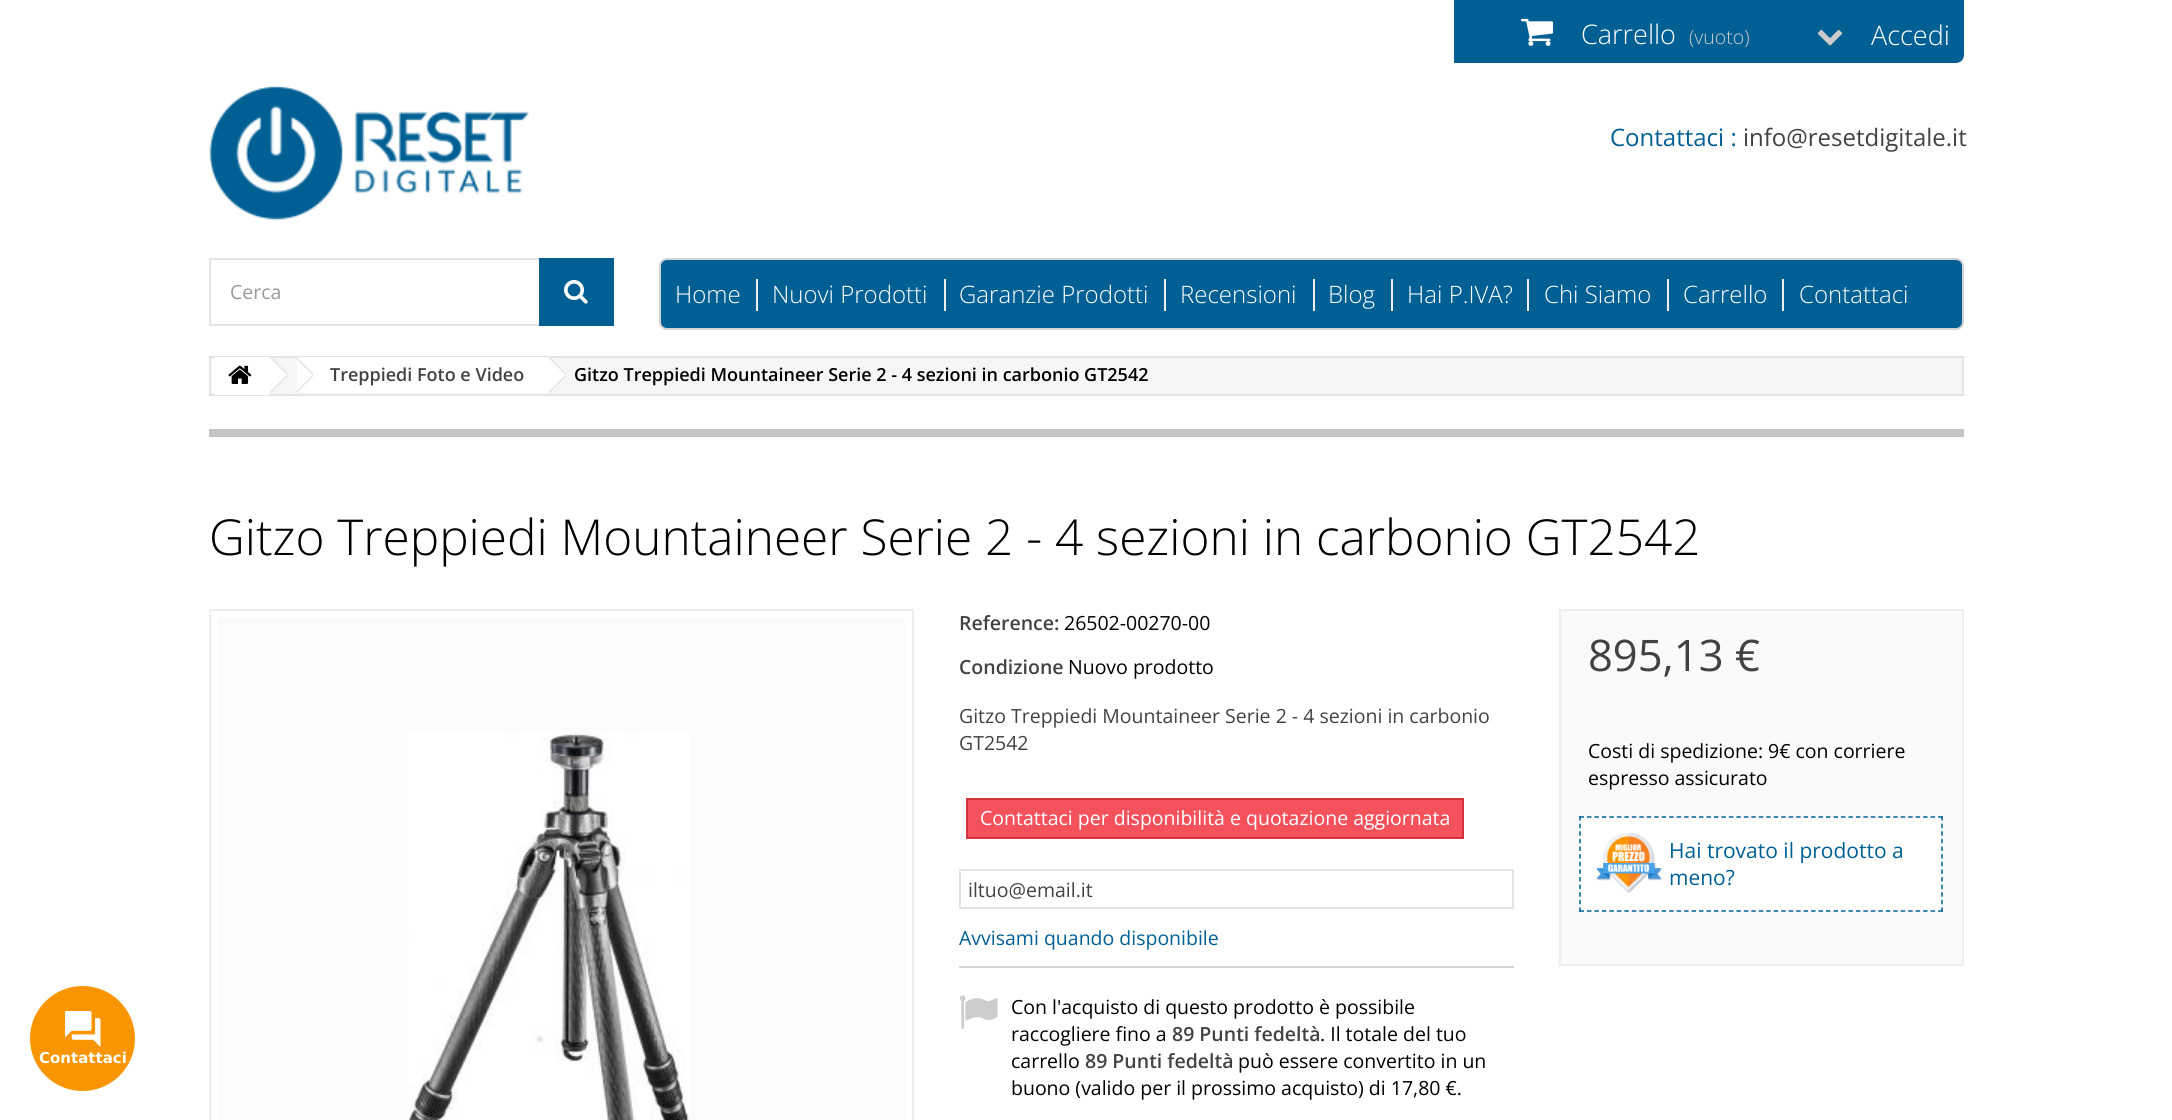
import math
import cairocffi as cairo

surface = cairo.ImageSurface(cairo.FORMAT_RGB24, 2172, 1120)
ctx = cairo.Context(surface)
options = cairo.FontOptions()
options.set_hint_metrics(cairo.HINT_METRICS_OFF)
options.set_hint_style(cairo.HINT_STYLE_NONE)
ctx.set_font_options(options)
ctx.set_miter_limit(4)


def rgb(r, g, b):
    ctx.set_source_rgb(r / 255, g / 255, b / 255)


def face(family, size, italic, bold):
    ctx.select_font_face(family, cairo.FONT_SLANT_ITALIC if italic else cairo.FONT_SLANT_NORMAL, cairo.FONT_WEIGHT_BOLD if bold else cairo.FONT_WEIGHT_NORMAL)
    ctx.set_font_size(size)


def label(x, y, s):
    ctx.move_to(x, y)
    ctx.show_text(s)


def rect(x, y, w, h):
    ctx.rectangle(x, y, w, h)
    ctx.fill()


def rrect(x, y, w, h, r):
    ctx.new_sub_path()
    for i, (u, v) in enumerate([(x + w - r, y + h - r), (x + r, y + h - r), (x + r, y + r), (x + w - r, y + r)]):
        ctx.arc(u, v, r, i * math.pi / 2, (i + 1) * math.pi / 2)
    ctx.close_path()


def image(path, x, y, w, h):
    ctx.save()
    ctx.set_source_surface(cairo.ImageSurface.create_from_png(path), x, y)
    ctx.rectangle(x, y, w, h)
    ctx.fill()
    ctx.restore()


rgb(255, 255, 255)
ctx.paint()
rgb(249, 149, 0)
ctx.arc(82.5, 1038.5, 52.5, 0, 2 * math.pi)
ctx.fill()
image('image0.png', 65, 1011, 36, 36)
face('DejaVu Sans', 15, 0, 1)
rgb(255, 255, 255)
label(39, 1063, 'Contattaci')
rgb(0, 96, 148)
rect(1454, 0, 405, 63)
image('image1.png', 1521, 18, 33, 28)
face('Open Sans Light', 27, 0, 0)
rgb(255, 255, 255)
label(1581, 44, 'Carrello')
face('Open Sans Light', 19.5, 0, 0)
rgb(204, 204, 204)
label(1689, 44, '(vuoto)')
image('image2.png', 1817, 29, 26, 17)
rgb(0, 96, 148)
ctx.new_path()
ctx.move_to(1859, 0)
ctx.line_to(1964, 0)
ctx.line_to(1964, 55)
ctx.curve_to(1964, 59.5, 1960.5, 63, 1956, 63)
ctx.line_to(1859, 63)
ctx.close_path()
ctx.fill()
face('Open Sans Light', 27, 0, 0)
rgb(255, 255, 255)
label(1871, 45, 'Accedi')
image('image3.png', 209, 86, 321, 135)
face('Open Sans', 24, 0, 0)
rgb(0, 96, 148)
label(1610, 146, 'Contattaci :')
rgb(66, 66, 66)
label(1743, 146, 'info@resetdigitale.it')
ctx.rectangle(210, 259, 403, 66)
rgb(228, 228, 228)
ctx.stroke()
face('Open Sans', 19.5, 0, 0)
rgb(153, 153, 153)
label(230, 299, 'Cerca')
rgb(0, 96, 148)
rect(539, 258, 75, 68)
image('image4.png', 564, 280, 24, 24)
rrect(660, 259, 1303, 70, 7)
ctx.fill_preserve()
rgb(211, 211, 211)
ctx.stroke()
face('Open Sans Light', 24, 0, 0)
rgb(255, 255, 255)
label(675, 303, 'Home')
rgb(238, 238, 238)
rect(756, 279, 2, 32)
rgb(255, 255, 255)
label(772, 303, 'Nuovi Prodotti')
rgb(238, 238, 238)
rect(944, 279, 2, 32)
rgb(255, 255, 255)
label(959, 303, 'Garanzie Prodotti')
rgb(238, 238, 238)
rect(1164, 279, 2, 32)
rgb(255, 255, 255)
label(1180, 303, 'Recensioni')
rgb(238, 238, 238)
rect(1313, 279, 2, 32)
rgb(255, 255, 255)
label(1328, 303, 'Blog')
rgb(238, 238, 238)
rect(1391, 279, 2, 32)
rgb(255, 255, 255)
label(1407, 303, 'Hai P.IVA?')
rgb(238, 238, 238)
rect(1527, 279, 2, 32)
rgb(255, 255, 255)
label(1544, 303, 'Chi Siamo')
rgb(238, 238, 238)
rect(1667, 279, 2, 32)
rgb(255, 255, 255)
label(1683, 303, 'Carrello')
rgb(238, 238, 238)
rect(1782, 279, 2, 32)
rgb(255, 255, 255)
label(1799, 303, 'Contattaci')
rgb(246, 246, 246)
ctx.rectangle(210, 357, 1753, 38)
ctx.fill_preserve()
rgb(228, 228, 228)
ctx.stroke()
rgb(255, 255, 255)
ctx.new_path()
ctx.move_to(217, 357)
ctx.line_to(269, 357)
ctx.line_to(269, 395)
ctx.line_to(217, 395)
ctx.curve_to(214, 395, 212, 393, 212, 390)
ctx.line_to(212, 362)
ctx.curve_to(212, 359, 214, 357, 217, 357)
ctx.close_path()
ctx.fill()
image('image5.png', 228, 365, 24, 19)
ctx.new_path()
ctx.move_to(272, 358)
ctx.line_to(287, 373)
ctx.curve_to(288, 374, 288, 376, 287, 377)
ctx.line_to(272, 392)
ctx.curve_to(271, 393, 269, 393, 268, 392)
ctx.line_to(253, 377)
ctx.curve_to(252, 376, 252, 374, 253, 373)
ctx.line_to(268, 358)
ctx.curve_to(269, 357, 271, 357, 272, 358)
ctx.close_path()
ctx.fill()
rgb(228, 228, 228)
ctx.new_path()
ctx.move_to(271, 357)
ctx.line_to(288, 374)
ctx.line_to(287, 375)
ctx.line_to(270, 358)
ctx.close_path()
ctx.move_to(287, 375)
ctx.line_to(288, 376)
ctx.line_to(271, 393)
ctx.line_to(270, 392)
ctx.close_path()
ctx.fill()
rgb(255, 255, 255)
rect(297, 357, 251, 36)
rgb(228, 228, 228)
ctx.new_path()
ctx.move_to(296.5, 357)
ctx.line_to(313.5, 374)
ctx.line_to(312.5, 375)
ctx.line_to(295.5, 358)
ctx.close_path()
ctx.move_to(312.5, 375)
ctx.line_to(313.5, 376)
ctx.line_to(296.5, 393)
ctx.line_to(295.5, 392)
ctx.close_path()
ctx.fill()
face('Open Sans SemiBold', 18, 0, 0)
rgb(66, 66, 66)
label(330, 381, 'Treppiedi Foto e Video')
rgb(255, 255, 255)
ctx.new_path()
ctx.move_to(550.5, 358)
ctx.line_to(565.5, 373)
ctx.curve_to(566.5, 374, 566.5, 376, 565.5, 377)
ctx.line_to(550.5, 392)
ctx.curve_to(549.5, 393, 547.5, 393, 546.5, 392)
ctx.line_to(531.5, 377)
ctx.curve_to(530.5, 376, 530.5, 374, 531.5, 373)
ctx.line_to(546.5, 358)
ctx.curve_to(547.5, 357, 549.5, 357, 550.5, 358)
ctx.close_path()
ctx.fill()
rgb(228, 228, 228)
ctx.new_path()
ctx.move_to(549.5, 357)
ctx.line_to(566.5, 374)
ctx.line_to(565.5, 375)
ctx.line_to(548.5, 358)
ctx.close_path()
ctx.move_to(565.5, 375)
ctx.line_to(566.5, 376)
ctx.line_to(549.5, 393)
ctx.line_to(548.5, 392)
ctx.close_path()
ctx.fill()
rgb(0, 0, 0)
label(574, 381, 'Gitzo Treppiedi Mountaineer Serie 2 - 4 sezioni in carbonio GT2542')
rgb(196, 196, 196)
rect(209, 429, 1755, 8)
face('Open Sans Light', 49.5, 0, 0)
rgb(0, 0, 0)
label(209, 555, 'Gitzo Treppiedi Mountaineer Serie 2 - 4 sezioni in carbonio GT2542')
ctx.rectangle(210, 610, 703, 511)
rgb(238, 238, 238)
ctx.stroke()
rgb(251, 251, 251)
rect(218, 618, 687, 502)
image('image6.png', 408, 731, 282, 389)
face('Open Sans SemiBold', 19.5, 0, 0)
rgb(66, 66, 66)
label(959, 630, 'Reference:')
face('Open Sans', 19.5, 0, 0)
rgb(0, 0, 0)
label(1064, 630, '26502-00270-00')
face('Open Sans SemiBold', 19.5, 0, 0)
rgb(66, 66, 66)
label(959, 674, 'Condizione')
face('Open Sans', 19.5, 0, 0)
rgb(0, 0, 0)
label(1068, 674, 'Nuovo prodotto')
rgb(66, 66, 66)
label(959, 723, 'Gitzo Treppiedi Mountaineer Serie 2 - 4 sezioni in carbonio')
label(959, 750, 'GT2542')
rgb(243, 81, 92)
ctx.rectangle(967, 799, 496, 39)
ctx.fill_preserve()
rgb(212, 50, 61)
ctx.stroke()
rgb(255, 255, 255)
label(980, 825, 'Contattaci per disponibilità e quotazione aggiornata')
ctx.rectangle(960, 870, 553, 38)
rgb(228, 228, 228)
ctx.stroke()
rgb(66, 66, 66)
label(968, 897, 'iltuo@email.it')
rgb(0, 96, 148)
label(959, 945, 'Avvisami quando disponibile')
rgb(214, 212, 212)
rect(959, 966, 555, 2)
image('image7.png', 960, 995, 38, 34)
rgb(0, 0, 0)
label(1011, 1014, 'Con l\'acquisto di questo prodotto è possibile')
label(1011, 1041, 'raccogliere fino a')
face('Open Sans SemiBold', 19.5, 0, 0)
rgb(66, 66, 66)
label(1172, 1041, '89 Punti fedeltà')
face('Open Sans', 19.5, 0, 0)
rgb(0, 0, 0)
label(1320, 1041, '. Il totale del tuo')
label(1011, 1068, 'carrello')
face('Open Sans SemiBold', 19.5, 0, 0)
rgb(66, 66, 66)
label(1085, 1068, '89 Punti fedeltà')
face('Open Sans', 19.5, 0, 0)
rgb(0, 0, 0)
label(1238, 1068, 'può essere convertito in un')
label(1011, 1095, 'buono (valido per il prossimo acquisto) di 17,80 €.')
rgb(250, 250, 250)
ctx.rectangle(1560, 610, 403, 355)
ctx.fill_preserve()
rgb(238, 238, 238)
ctx.stroke()
face('Open Sans', 43.5, 0, 0)
rgb(66, 66, 66)
label(1588, 671, '895,13 €')
face('Open Sans', 19.5, 0, 0)
rgb(0, 0, 0)
label(1588, 758, 'Costi di spedizione: 9€ con corriere')
label(1588, 785, 'espresso assicurato')
rgb(255, 255, 255)
rect(1580, 816, 363, 96)
ctx.new_path()
ctx.move_to(1579.5, 817)
ctx.line_to(1942.5, 817)
rgb(0, 96, 148)
ctx.set_line_width(1.5)
ctx.set_dash([4.5, 2.97])
ctx.stroke()
ctx.new_path()
ctx.move_to(1942, 816)
ctx.line_to(1942, 912)
ctx.set_dash([4.5, 3.12])
ctx.stroke()
ctx.new_path()
ctx.move_to(1579.5, 911)
ctx.line_to(1942.5, 911)
ctx.set_dash([4.5, 2.97])
ctx.stroke()
ctx.new_path()
ctx.move_to(1580, 816)
ctx.line_to(1580, 912)
ctx.set_dash([4.5, 3.12])
ctx.stroke()
image('image8.png', 1596, 832, 66, 61)
face('Open Sans', 21, 0, 0)
label(1669, 858, 'Hai trovato il prodotto a')
label(1669, 885, 'meno?')
surface.write_to_png('render.png')
